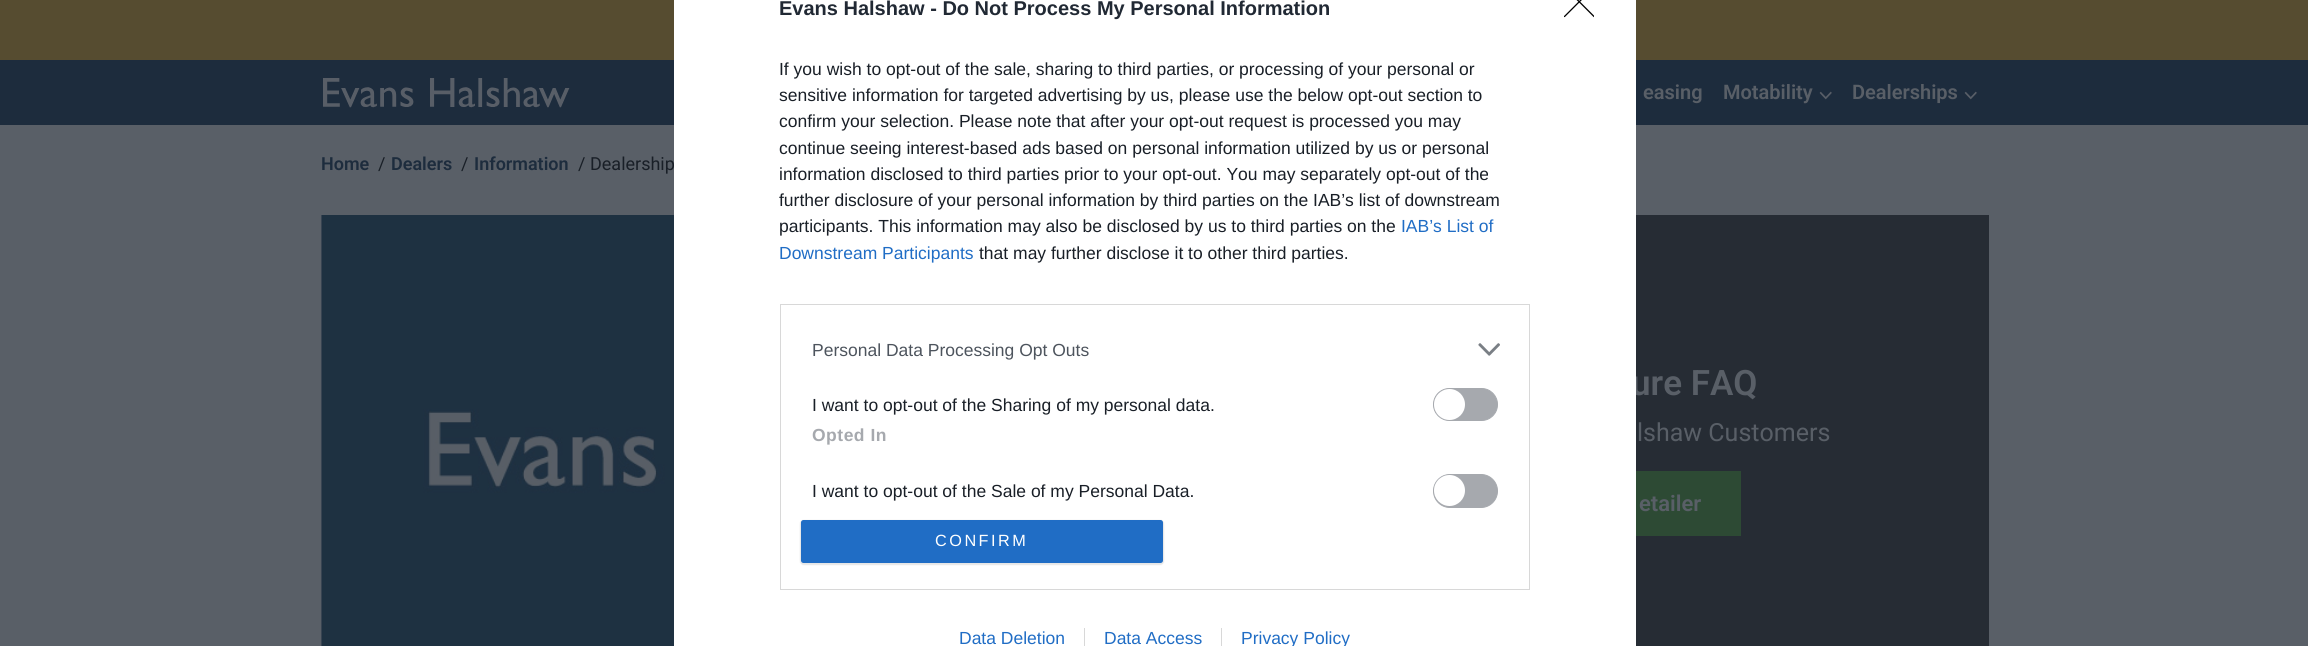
import math
import cairocffi as cairo

surface = cairo.ImageSurface(cairo.FORMAT_RGB24, 2308, 646)
ctx = cairo.Context(surface)
options = cairo.FontOptions()
options.set_hint_metrics(cairo.HINT_METRICS_OFF)
options.set_hint_style(cairo.HINT_STYLE_NONE)
ctx.set_font_options(options)
ctx.set_miter_limit(4)


def rgb(r, g, b):
    ctx.set_source_rgb(r / 255, g / 255, b / 255)


def face(family, size, italic, bold):
    ctx.select_font_face(family, cairo.FONT_SLANT_ITALIC if italic else cairo.FONT_SLANT_NORMAL, cairo.FONT_WEIGHT_BOLD if bold else cairo.FONT_WEIGHT_NORMAL)
    ctx.set_font_size(size)


def label(x, y, s):
    ctx.move_to(x, y)
    ctx.show_text(s)


def tracked(x, y, s, letter, word):
    ctx.move_to(x, y)
    for ch in s:
        ctx.show_text(ch)
        ctx.rel_move_to(letter + word * (ch == ' '), 0)


def rect(x, y, w, h):
    ctx.rectangle(x, y, w, h)
    ctx.fill()


def rrect(x, y, w, h, r):
    ctx.new_sub_path()
    for i, (u, v) in enumerate([(x + w - r, y + h - r), (x + r, y + h - r), (x + r, y + r), (x + w - r, y + r)]):
        ctx.arc(u, v, r, i * math.pi / 2, (i + 1) * math.pi / 2)
    ctx.close_path()


def soft_shadow(x, y, w, h, r, blur, alpha):
    ctx.push_group_with_content(cairo.CONTENT_ALPHA)
    ctx.set_operator(cairo.OPERATOR_SOURCE)
    for i in range(15, -16, -2):
        e = blur * i / 6
        if min(w, h) + 2 * e > 0:
            ctx.set_source_rgba(0, 0, 0, alpha * math.erfc((i - 1) / 8.5) / 2)
            rrect(x - e, y - e, w + 2 * e, h + 2 * e, max(0, min(r + e + blur * .6, min(w, h) / 2 + e)))
            ctx.fill()
    ctx.mask(ctx.pop_group())


def image(path, x, y, w, h):
    ctx.save()
    ctx.set_source_surface(cairo.ImageSurface.create_from_png(path), x, y)
    ctx.rectangle(x, y, w, h)
    ctx.fill()
    ctx.restore()


rgb(89, 95, 103)
ctx.paint()
rgb(86, 76, 48)
rect(0, 0, 2308, 60)
rgb(29, 44, 61)
rect(0, 60, 2308, 65)
face('Roboto', 18, 0, 0)
rgb(25, 31, 39)
label(590, 170, 'Dealership')
rgb(38, 44, 52)
rect(1636, 215, 353, 431)
face('Roboto SemiBold', 35, 0, 0)
rgb(89, 95, 103)
label(1631, 395, 'ure FAQ')
rgb(255, 255, 255)
rect(674, 0, 962, 646)
face('Liberation Sans', 20, 0, 1)
rgb(33, 41, 52)
label(779, 15, 'Evans Halshaw - Do Not Process My Personal Information')
face('Liberation Sans', 17.5, 0, 0)
rgb(25, 31, 39)
label(779, 75, 'If you wish to opt-out of the sale, sharing to third parties, or processing of your personal or')
label(779, 101, 'sensitive information for targeted advertising by us, please use the below opt-out section to')
label(779, 127, 'confirm your selection. Please note that after your opt-out request is processed you may')
label(779, 154, 'continue seeing interest-based ads based on personal information utilized by us or personal')
label(779, 180, 'information disclosed to third parties prior to your opt-out. You may separately opt-out of the')
label(779, 206, 'further disclosure of your personal information by third parties on the IAB’s list of downstream')
label(779, 232, 'participants. This information may also be disclosed by us to third parties on the')
rgb(32, 109, 197)
label(1401, 232, 'IAB’s List of')
label(779, 259, 'Downstream Participants')
rgb(25, 31, 39)
label(979, 259, 'that may further disclose it to other third parties.')
ctx.rectangle(780.5, 304.5, 749, 285)
rgb(216, 216, 216)
ctx.set_line_width(1)
ctx.stroke()
rgb(77, 84, 93)
label(812, 356, 'Personal Data Processing Opt Outs')
image('image0.png', 1478, 343, 22, 13)
rgb(25, 31, 39)
label(812, 411, 'I want to opt-out of the Sharing of my personal data.')
rgb(166, 169, 174)
rrect(1433.5, 388.5, 64, 32, 16)
ctx.fill_preserve()
ctx.stroke()
rgb(255, 255, 255)
ctx.arc(1449.5, 404.5, 15.5, 0, 2 * math.pi)
ctx.fill()
face('Liberation Sans', 17.5, 0, 1)
rgb(166, 169, 174)
tracked(812, 441, 'Opted In', 0.5, 0)
face('Liberation Sans', 17.5, 0, 0)
rgb(25, 31, 39)
label(812, 497, 'I want to opt-out of the Sale of my Personal Data.')
rgb(166, 169, 174)
rrect(1433.5, 474.5, 64, 33, 16.5)
ctx.fill_preserve()
ctx.stroke()
rgb(255, 255, 255)
ctx.arc(1449.5, 490.5, 15.5, 0, 2 * math.pi)
ctx.fill()
rgb(0, 0, 0)
soft_shadow(800, 520, 364, 45, 4, 0.5, 0.1)
rgb(32, 109, 197)
rrect(801, 520, 362, 43, 2.5)
ctx.fill()
face('Liberation Sans', 16.25, 0, 0)
rgb(255, 255, 255)
tracked(935, 546, 'CONFIRM', 2.5, 0)
ctx.save()
ctx.rectangle(1564, 0, 30, 18)
ctx.clip()
ctx.new_path()
ctx.move_to(1564.5, -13)
ctx.line_to(1594, 16.5)
ctx.move_to(1594, -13)
ctx.line_to(1564.5, 16.5)
rgb(0, 0, 0)
ctx.set_line_width(1.3)
ctx.set_line_cap(cairo.LINE_CAP_ROUND)
ctx.set_line_join(cairo.LINE_JOIN_ROUND)
ctx.stroke()
ctx.restore()
face('Liberation Sans', 17.5, 0, 0)
rgb(32, 109, 197)
label(959, 644, 'Data Deletion')
label(1104, 644, 'Data Access')
rgb(216, 216, 216)
rect(1084, 628, 1, 18)
rgb(32, 109, 197)
label(1241, 644, 'Privacy Policy')
rgb(216, 216, 216)
rect(1221, 628, 1, 18)
image('image1.png', 323, 78, 247, 30)
face('Roboto SemiBold', 20, 0, 0)
rgb(89, 95, 103)
label(1643, 99, 'easing')
label(1723, 99, 'Motability')
image('image2.png', 1819, 91, 13, 9)
label(1852, 99, 'Dealerships')
image('image2.png', 1964, 91, 13, 9)
face('Roboto SemiBold', 18, 0, 0)
rgb(29, 44, 61)
label(321, 170, 'Home')
face('Roboto', 18, 0, 0)
rgb(25, 31, 39)
label(378, 170, '/')
face('Roboto SemiBold', 18, 0, 0)
rgb(29, 44, 61)
label(391, 170, 'Dealers')
face('Roboto', 18, 0, 0)
rgb(25, 31, 39)
label(461, 170, '/')
face('Roboto SemiBold', 18, 0, 0)
rgb(29, 44, 61)
label(474, 170, 'Information')
face('Roboto', 18, 0, 0)
rgb(25, 31, 39)
label(578, 170, '/')
image('image3.png', 321, 215, 353, 431)
face('Roboto', 25, 0, 0)
rgb(89, 95, 103)
label(1637, 441, 'lshaw Customers')
rgb(45, 74, 52)
rect(1636, 471, 105, 65)
face('Roboto SemiBold', 22, 0, 0)
rgb(89, 95, 103)
label(1639, 511, 'etailer')
surface.write_to_png('render.png')
